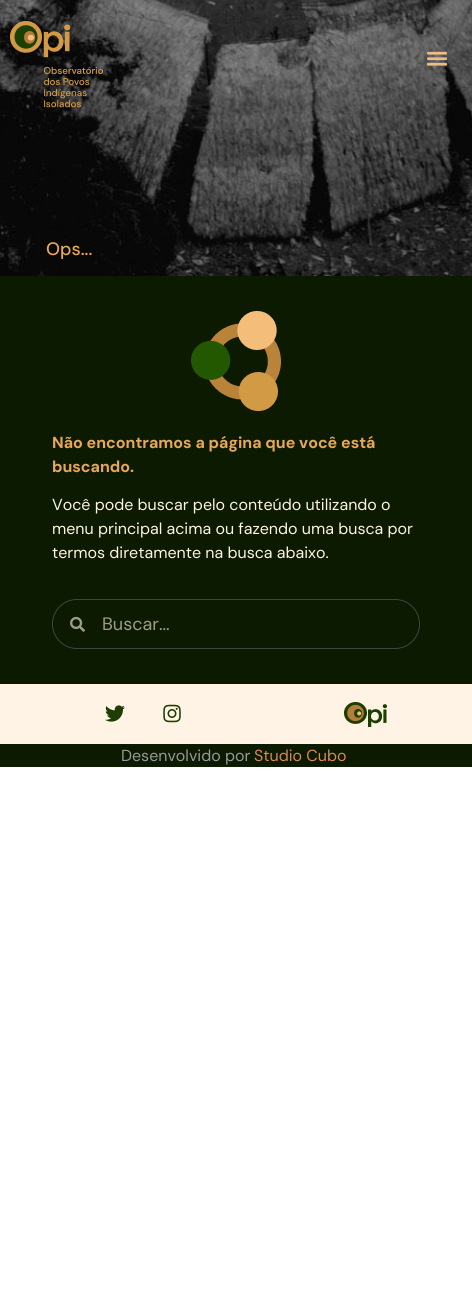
import math
import cairocffi as cairo

surface = cairo.ImageSurface(cairo.FORMAT_RGB24, 472, 1297)
ctx = cairo.Context(surface)
options = cairo.FontOptions()
options.set_hint_metrics(cairo.HINT_METRICS_OFF)
options.set_hint_style(cairo.HINT_STYLE_NONE)
ctx.set_font_options(options)
ctx.set_miter_limit(4)


def rgb(r, g, b):
    ctx.set_source_rgb(r / 255, g / 255, b / 255)


def face(family, size, italic, bold):
    ctx.select_font_face(family, cairo.FONT_SLANT_ITALIC if italic else cairo.FONT_SLANT_NORMAL, cairo.FONT_WEIGHT_BOLD if bold else cairo.FONT_WEIGHT_NORMAL)
    ctx.set_font_size(size)


def label(x, y, s):
    ctx.move_to(x, y)
    ctx.show_text(s)


def rect(x, y, w, h):
    ctx.rectangle(x, y, w, h)
    ctx.fill()


def rrect(x, y, w, h, r):
    ctx.new_sub_path()
    for i, (u, v) in enumerate([(x + w - r, y + h - r), (x + r, y + h - r), (x + r, y + r), (x + w - r, y + r)]):
        ctx.arc(u, v, r, i * math.pi / 2, (i + 1) * math.pi / 2)
    ctx.close_path()


def image(path, x, y, w, h):
    ctx.save()
    ctx.set_source_surface(cairo.ImageSurface.create_from_png(path), x, y)
    ctx.rectangle(x, y, w, h)
    ctx.fill()
    ctx.restore()


rgb(255, 255, 255)
ctx.paint()
image('image2.png', 0, 0, 472, 276)
image('image0.png', 10, 21, 93, 87)
image('image1.png', 426, 51, 22, 15)
face('DM Sans Medium', 18, 0, 0)
rgb(232, 168, 87)
label(46, 255, 'Ops...')
rgb(11, 26, 0)
rect(0, 276, 472, 408)
image('image3.png', 191, 311, 90, 100)
face('DM Sans', 16, 0, 1)
rgb(232, 168, 87)
label(52, 448, 'Não encontramos a página que você está')
label(52, 472, 'buscando.')
face('DM Sans', 16, 0, 0)
rgb(255, 243, 229)
label(52, 510, 'Você pode buscar pelo conteúdo utilizando o')
label(52, 534, 'menu principal acima ou fazendo uma busca por')
label(52, 558, 'termos diretamente na busca abaixo.')
rrect(52.5, 599.5, 367, 49, 24.5)
rgb(66, 66, 66)
ctx.set_line_width(1)
ctx.stroke()
image('image4.png', 70, 616, 15, 16)
face('DM Sans', 18, 0, 0)
rgb(157, 156, 137)
label(102, 630, 'Buscar...')
rgb(255, 243, 229)
rect(0, 684, 472, 60)
image('image5.png', 105, 705, 20, 17)
image('image6.png', 163, 704, 18, 19)
image('image7.png', 344, 702, 43, 25)
rgb(11, 26, 0)
rect(0, 744, 472, 23)
face('DM Sans', 16, 0, 0)
rgb(153, 153, 153)
label(121, 761, 'Desenvolvido por')
rgb(217, 138, 76)
label(254, 761, 'Studio Cubo')
surface.write_to_png('render.png')
